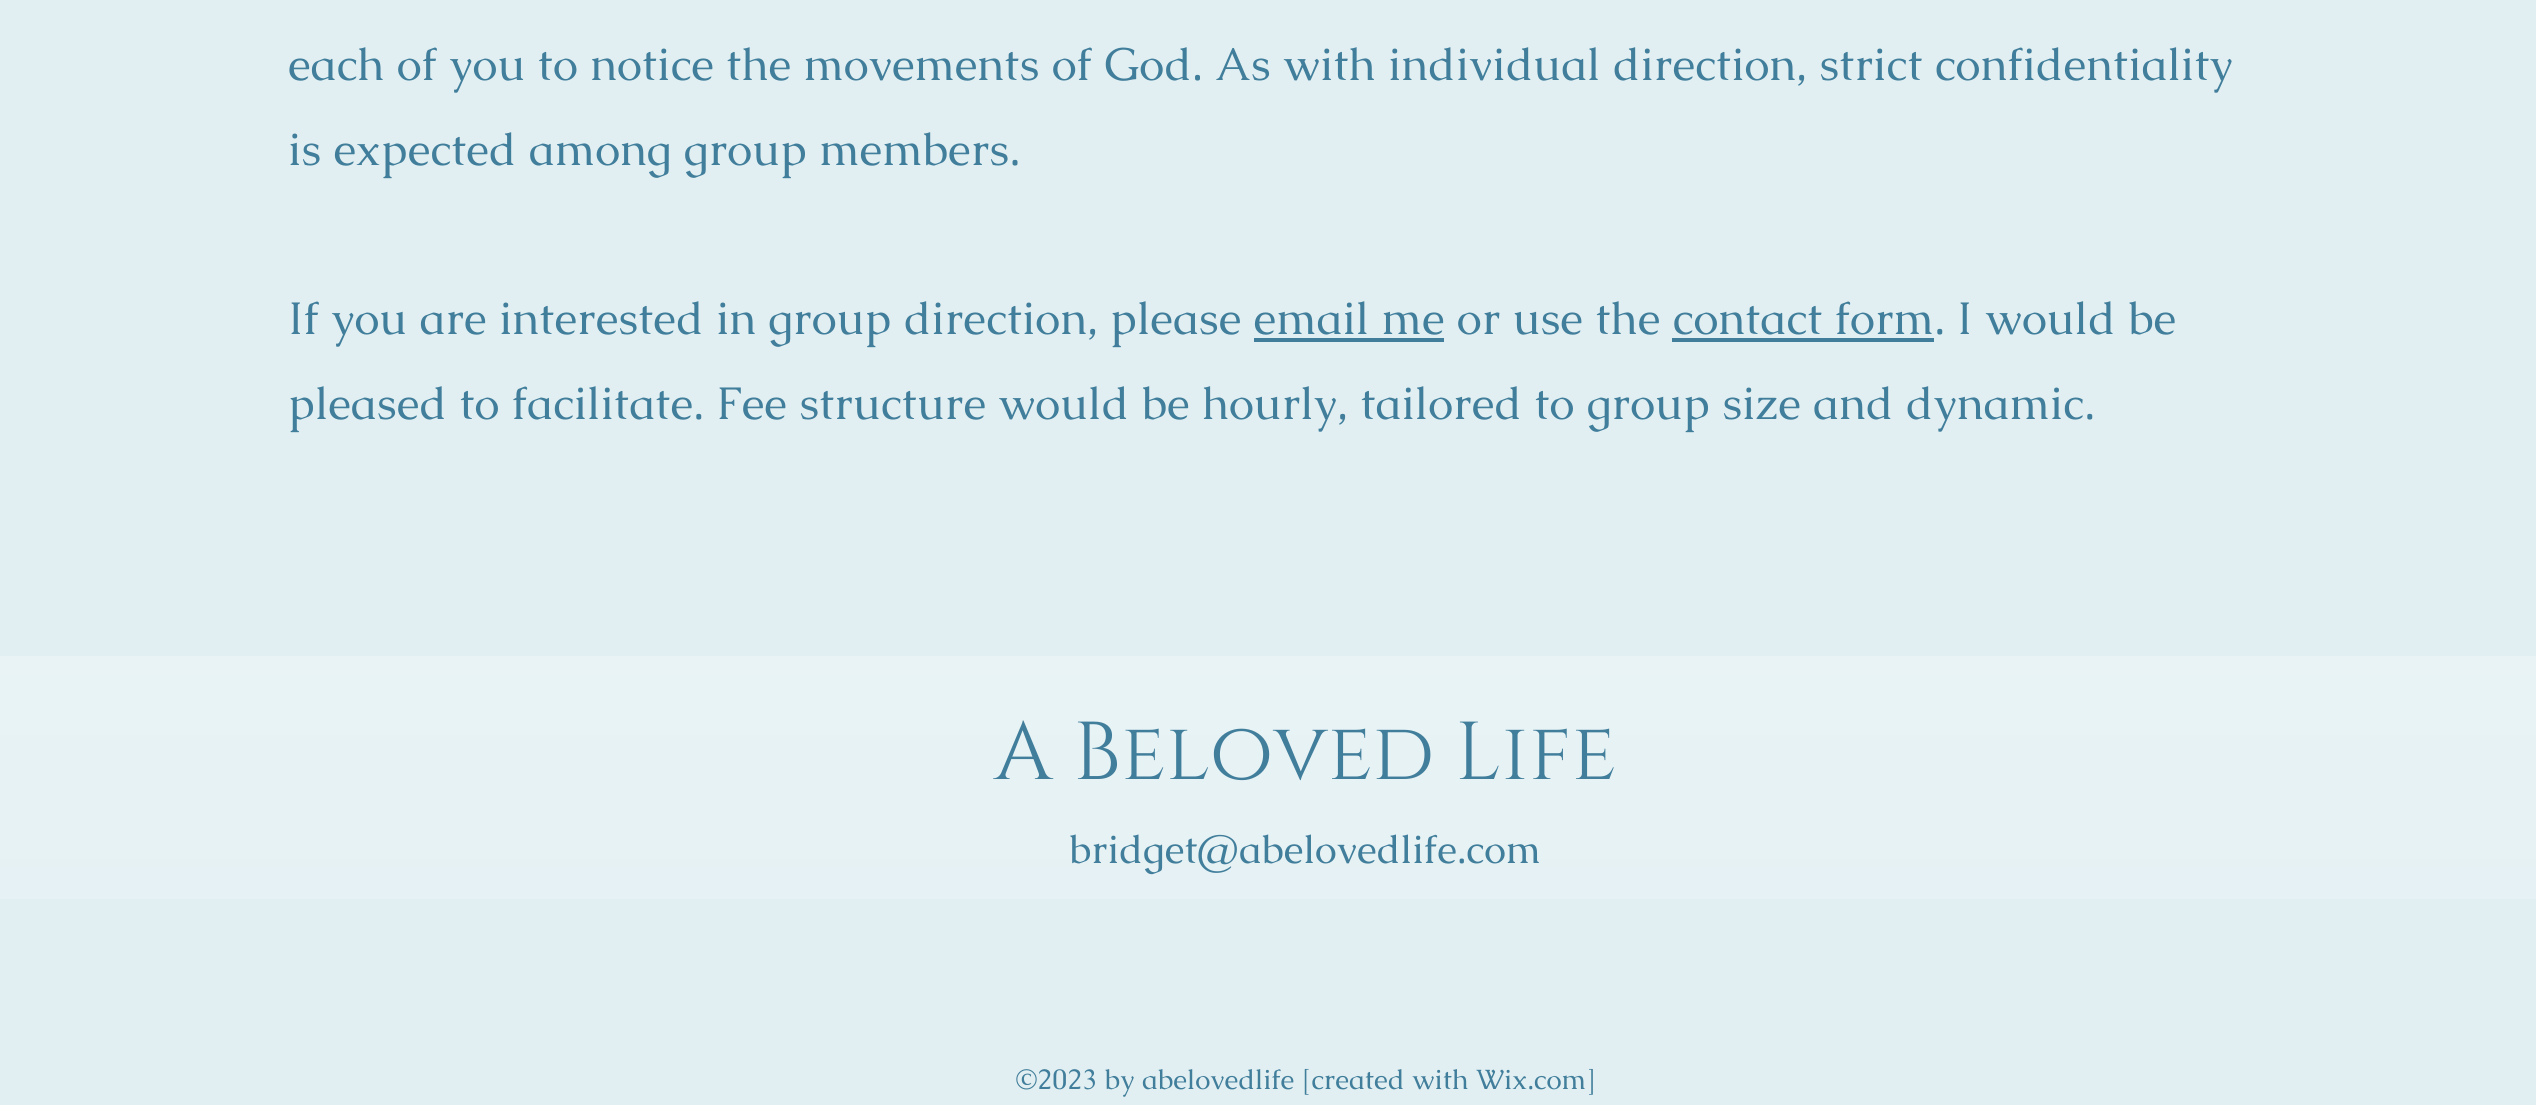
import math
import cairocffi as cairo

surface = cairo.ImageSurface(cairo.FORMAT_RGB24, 2536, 1105)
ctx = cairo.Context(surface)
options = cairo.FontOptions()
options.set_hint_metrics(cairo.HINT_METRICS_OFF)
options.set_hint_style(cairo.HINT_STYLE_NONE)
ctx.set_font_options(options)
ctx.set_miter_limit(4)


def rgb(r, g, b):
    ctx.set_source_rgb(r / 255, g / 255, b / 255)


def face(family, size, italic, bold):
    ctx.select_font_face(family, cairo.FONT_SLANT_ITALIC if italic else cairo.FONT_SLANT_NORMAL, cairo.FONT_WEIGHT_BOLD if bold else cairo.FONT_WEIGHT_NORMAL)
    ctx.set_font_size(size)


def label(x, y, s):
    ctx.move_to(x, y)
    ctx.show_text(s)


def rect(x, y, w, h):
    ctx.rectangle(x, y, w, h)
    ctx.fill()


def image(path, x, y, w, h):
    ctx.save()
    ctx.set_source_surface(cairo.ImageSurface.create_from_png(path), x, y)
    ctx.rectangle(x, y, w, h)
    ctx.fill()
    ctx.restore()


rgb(225, 239, 242)
ctx.paint()
face('Caudex', 46, 0, 0)
rgb(65, 126, 155)
label(288, 80, 'each of you to notice the movements of God. As with individual direction, strict confidentiality')
label(288, 165, 'is expected among group members.')
label(288, 334, 'If you are interested in group direction, please email me or use the contact form. I would be')
rect(1254, 338, 190, 4)
rect(1672, 338, 262, 4)
label(288, 419, 'pleased to facilitate. Fee structure would be hourly, tailored to group size and dynamic.')
image('image0.png', 0, 656, 2536, 243)
face('Cinzel', 82, 0, 0)
label(994, 779, 'A Beloved Life')
face('Caudex', 40, 0, 0)
label(1069, 863, 'bridget@abelovedlife.com')
face('Caudex', 28, 0, 0)
label(1016, 1089, '©2023 by abelovedlife [created with Wix.com]')
surface.write_to_png('render.png')
